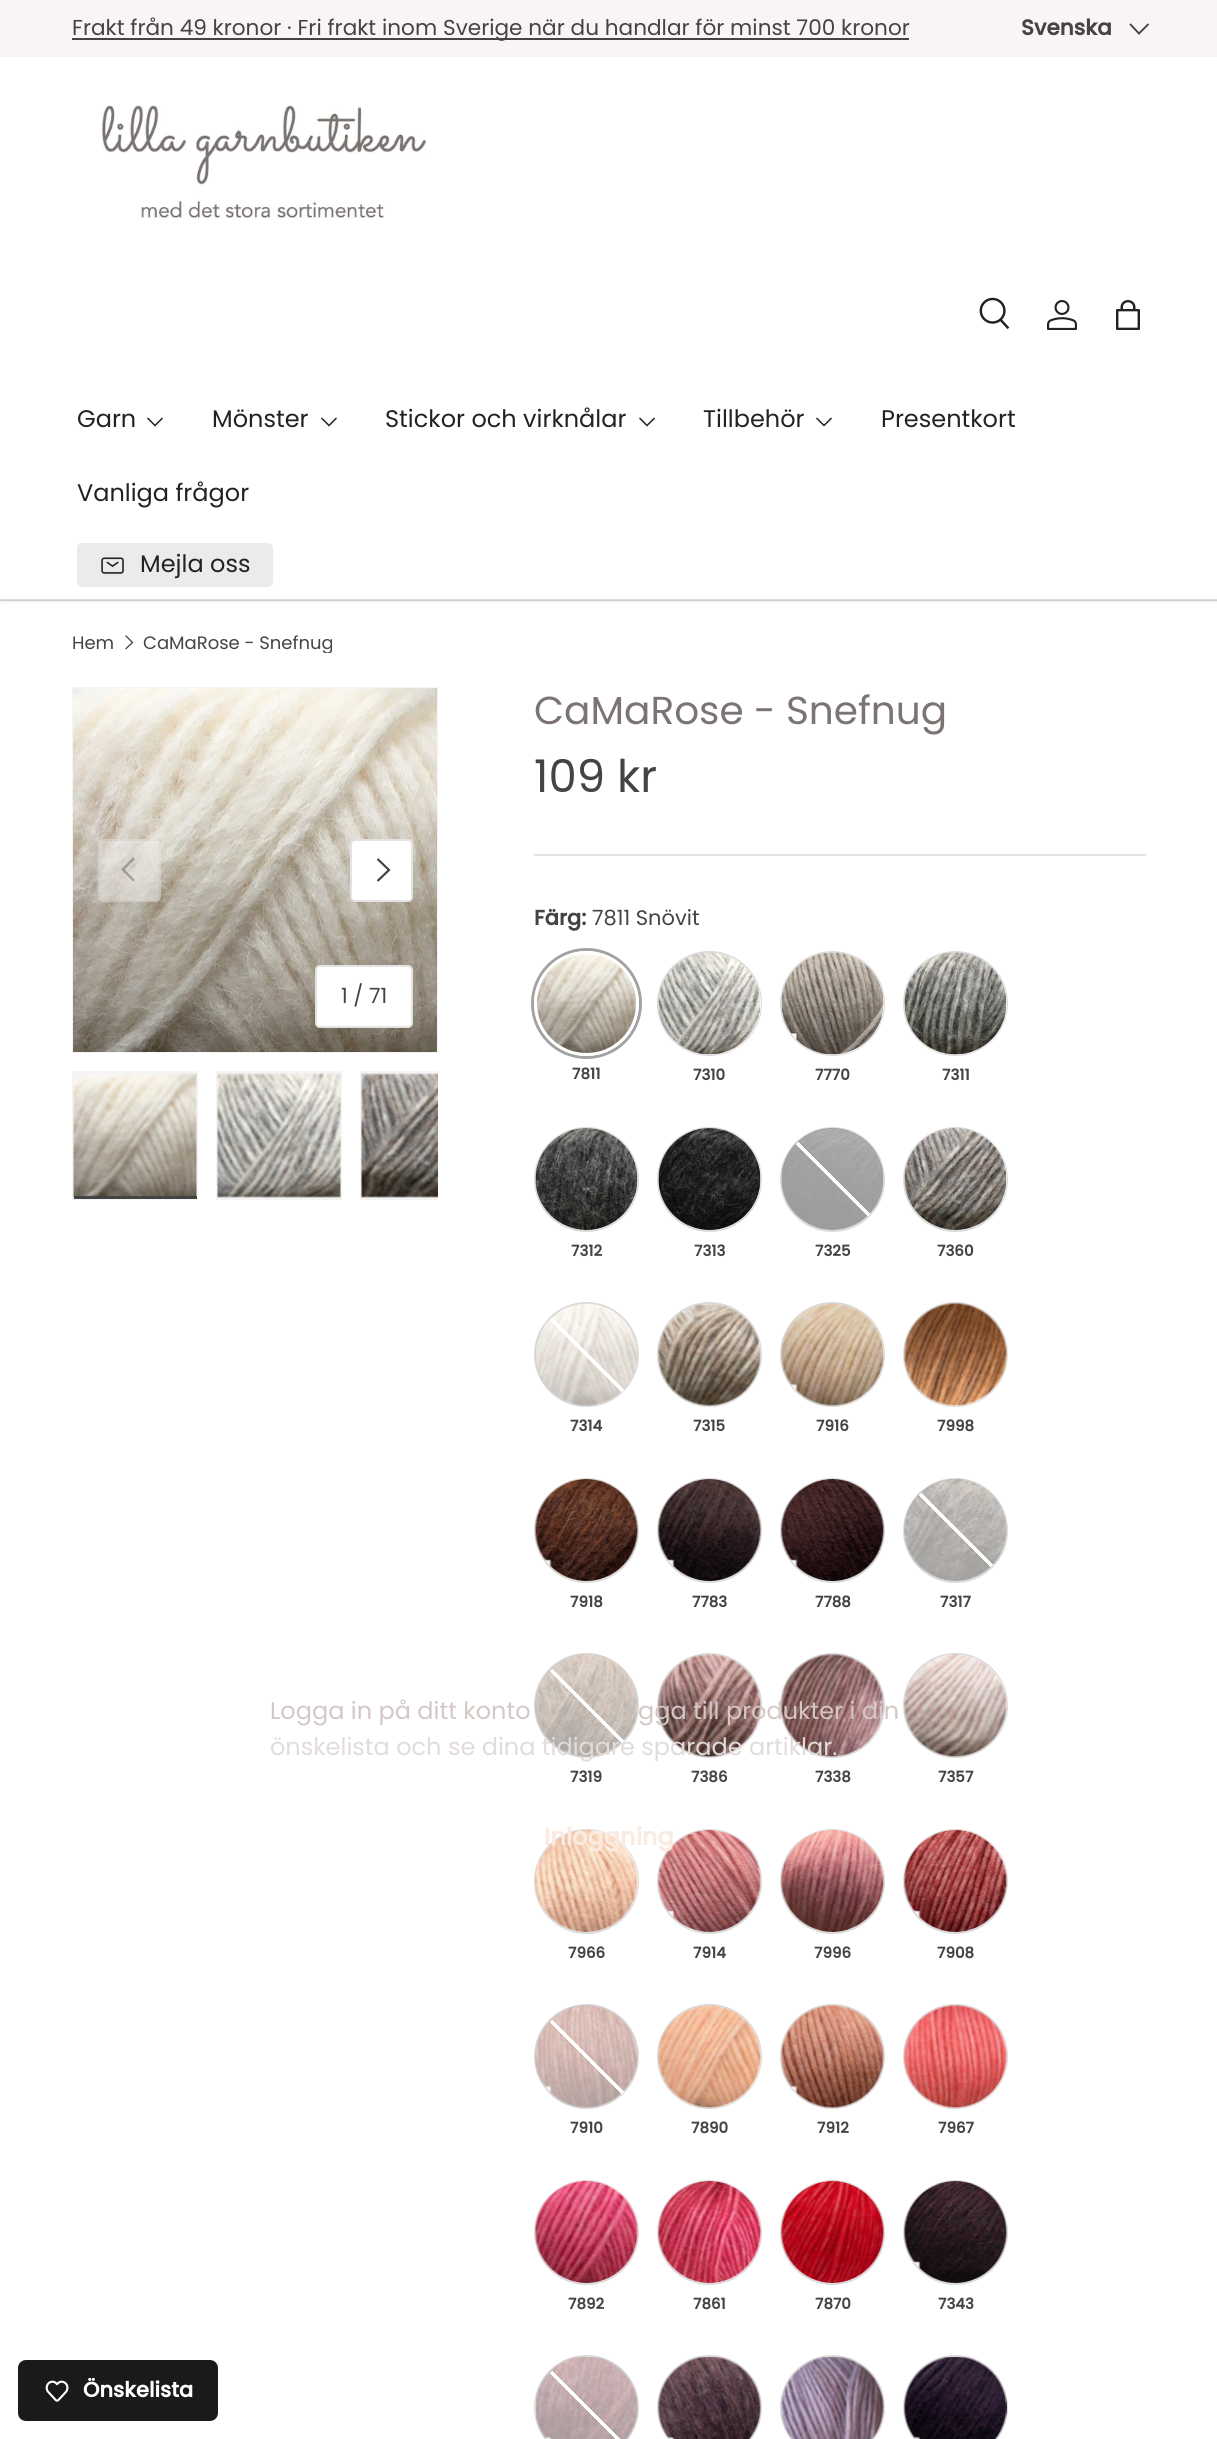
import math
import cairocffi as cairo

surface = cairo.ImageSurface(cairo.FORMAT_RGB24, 1217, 2439)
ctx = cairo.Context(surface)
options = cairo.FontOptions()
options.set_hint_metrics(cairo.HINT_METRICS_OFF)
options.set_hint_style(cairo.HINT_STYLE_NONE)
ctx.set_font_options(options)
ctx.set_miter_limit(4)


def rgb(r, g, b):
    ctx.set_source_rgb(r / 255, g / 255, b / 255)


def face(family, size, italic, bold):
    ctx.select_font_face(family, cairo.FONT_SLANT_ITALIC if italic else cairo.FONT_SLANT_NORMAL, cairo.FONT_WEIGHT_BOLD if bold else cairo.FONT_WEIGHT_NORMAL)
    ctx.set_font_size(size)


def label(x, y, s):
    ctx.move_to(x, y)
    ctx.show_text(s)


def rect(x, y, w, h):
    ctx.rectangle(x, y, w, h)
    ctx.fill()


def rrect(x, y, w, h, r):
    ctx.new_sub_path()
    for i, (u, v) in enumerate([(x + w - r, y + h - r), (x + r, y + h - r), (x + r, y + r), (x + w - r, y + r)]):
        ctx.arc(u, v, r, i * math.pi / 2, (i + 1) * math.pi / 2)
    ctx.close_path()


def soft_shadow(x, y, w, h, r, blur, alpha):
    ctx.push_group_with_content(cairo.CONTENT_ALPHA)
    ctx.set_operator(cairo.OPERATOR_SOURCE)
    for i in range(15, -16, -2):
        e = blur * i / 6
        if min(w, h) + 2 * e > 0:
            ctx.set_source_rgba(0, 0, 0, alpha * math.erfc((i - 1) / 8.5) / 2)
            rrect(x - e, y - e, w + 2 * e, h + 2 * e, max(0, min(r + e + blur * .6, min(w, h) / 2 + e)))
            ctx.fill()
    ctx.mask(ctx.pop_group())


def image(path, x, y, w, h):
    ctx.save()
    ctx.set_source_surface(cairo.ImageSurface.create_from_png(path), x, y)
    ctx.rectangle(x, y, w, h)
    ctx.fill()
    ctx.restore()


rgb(255, 255, 255)
ctx.paint()
ctx.save()
ctx.rectangle(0, 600, 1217, 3)
ctx.clip()
rgb(0, 0, 0)
soft_shadow(-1, 56, 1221, 546, 0, 2, 0.08)
ctx.restore()
rgb(251, 244, 244)
rect(0, 0, 1217, 57)
rgb(68, 68, 68)
rect(72, 38, 837, 2)
face('Poppins', 21.6, 0, 0)
label(72, 35, 'Frakt från 49 kronor · Fri frakt inom Sverige när du handlar för minst 700 kronor')
face('Poppins', 21.6, 0, 1)
label(1021, 35, 'Svenska')
ctx.new_path()
ctx.move_to(1148.5, 24)
ctx.line_to(1139, 33.5)
ctx.line_to(1130, 24)
ctx.set_line_width(1.9)
ctx.stroke()
image('image0.png', 102, 105, 324, 114)
image('image1.png', 979, 297, 31, 32)
image('image2.png', 1047, 300, 30, 30)
image('image3.png', 1116, 300, 24, 30)
face('Poppins', 24, 0, 0)
rgb(34, 34, 34)
label(77, 427, 'Garn')
ctx.new_path()
ctx.move_to(162.5, 418)
ctx.line_to(155, 425.5)
ctx.line_to(147.5, 418)
ctx.set_line_width(1.5)
ctx.stroke()
label(212, 427, 'Mönster')
ctx.new_path()
ctx.move_to(336.5, 418)
ctx.line_to(329, 425.5)
ctx.line_to(321.5, 418)
ctx.stroke()
label(385, 427, 'Stickor och virknålar')
ctx.new_path()
ctx.move_to(654.5, 418)
ctx.line_to(647, 425.5)
ctx.line_to(639.5, 418)
ctx.stroke()
label(703, 427, 'Tillbehör')
ctx.new_path()
ctx.move_to(831.5, 418)
ctx.line_to(824, 425.5)
ctx.line_to(816.5, 418)
ctx.stroke()
label(881, 427, 'Presentkort')
label(77, 501, 'Vanliga frågor')
ctx.save()
rrect(77, 543, 196, 44, 5)
ctx.clip()
gradient = cairo.LinearGradient(-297, 495, 259, 634)
gradient.add_color_stop_rgba(0.6, 0.835, 0.835, 0.835, 1)
gradient.add_color_stop_rgba(0.6, 0.922, 0.922, 0.922, 1)
gradient.add_color_stop_rgba(1, 0.922, 0.922, 0.922, 1)
ctx.set_source(gradient)
rect(77, 545, 194, 40)
ctx.restore()
rrect(78, 544, 194, 42, 4)
rgb(235, 235, 235)
ctx.set_line_width(2)
ctx.stroke()
image('image4.png', 101, 557, 23, 17)
rgb(34, 34, 34)
label(140, 572, 'Mejla oss')
ctx.set_source_rgba(0.133, 0.133, 0.133, 0.15)
rect(0, 599, 1217, 2)
face('Poppins', 18, 0, 0)
rgb(68, 68, 68)
label(72, 649, 'Hem')
ctx.new_path()
ctx.move_to(125.5, 635.5)
ctx.line_to(132.5, 642.5)
ctx.line_to(125.5, 649)
ctx.set_line_width(1.3)
ctx.stroke()
ctx.save()
ctx.rectangle(143, 635, 190, 18)
ctx.clip()
label(143, 649, 'CaMaRose - Snefnug')
ctx.restore()
rgb(244, 244, 244)
rect(72, 687, 366, 366)
image('image5.png', 73, 688, 364, 364)
ctx.set_source_rgba(1, 1, 1, 0.4)
rrect(98, 839, 63, 63, 5)
ctx.fill()
ctx.rectangle(99, 840, 61, 61)
ctx.set_source_rgba(0.267, 0.267, 0.267, 0.06)
ctx.set_line_width(2)
ctx.stroke()
ctx.set_source_rgba(0.267, 0.267, 0.267, 0.4)
ctx.new_path()
ctx.move_to(121, 869.5)
ctx.line_to(133, 857.5)
ctx.line_to(135, 859)
ctx.line_to(124.5, 869.5)
ctx.line_to(135, 880)
ctx.line_to(133, 881.5)
ctx.close_path()
ctx.fill()
rgb(255, 255, 255)
rrect(350, 839, 63, 63, 5)
ctx.fill()
rrect(351, 840, 61, 61, 4)
ctx.set_source_rgba(0.267, 0.267, 0.267, 0.15)
ctx.stroke()
ctx.new_path()
ctx.move_to(377.5, 859)
ctx.line_to(389, 870)
ctx.line_to(377.5, 881)
rgb(68, 68, 68)
ctx.set_line_width(2.2)
ctx.stroke()
rgb(255, 255, 255)
rrect(315, 965, 98, 63, 5)
ctx.fill()
rrect(316, 966, 96, 61, 4)
ctx.set_source_rgba(0.267, 0.267, 0.267, 0.15)
ctx.set_line_width(2)
ctx.stroke()
face('Poppins', 21, 0, 0)
rgb(68, 68, 68)
label(341, 1003, '1 / 71')
rgb(244, 244, 244)
rect(72, 1071, 126, 129)
image('image6.png', 73, 1073, 124, 125)
rgb(68, 68, 68)
rect(74, 1196, 123, 3)
rgb(244, 244, 244)
rect(216, 1071, 126, 129)
image('image7.png', 217, 1073, 124, 125)
rect(360, 1071, 78, 129)
image('image8.png', 361, 1073, 77, 125)
face('Poppins', 39, 0, 0)
rgb(123, 116, 114)
label(534, 724, 'CaMaRose - Snefnug')
face('Poppins', 45, 0, 0)
rgb(68, 68, 68)
label(534, 792, '109 kr')
rgb(227, 227, 227)
rect(534, 854, 612, 2)
face('Poppins', 21, 0, 1)
rgb(68, 68, 68)
label(534, 925, 'Färg:')
face('Poppins', 21, 0, 0)
label(592, 925, '7811 Snövit')
ctx.new_path()
ctx.arc(586.5, 1003.5, 54, 0, 2 * math.pi)
rgb(162, 162, 162)
ctx.set_line_width(3)
ctx.stroke()
ctx.arc(586.5, 1003.5, 51, 0, 2 * math.pi)
rgb(255, 255, 255)
ctx.stroke()
image('image9.png', 537, 954, 99, 99)
face('Poppins', 15, 0, 1)
rgb(68, 68, 68)
label(572, 1079, '7811')
ctx.new_path()
ctx.arc(709.5, 1003.5, 51.5, 0, 2 * math.pi)
rgb(218, 218, 218)
ctx.set_line_width(2)
ctx.stroke()
rgb(255, 255, 255)
ctx.arc(710, 1004, 51, 0, 2 * math.pi)
ctx.fill()
image('image10.png', 658, 952, 103, 103)
rgb(68, 68, 68)
label(693, 1080, '7310')
ctx.new_path()
ctx.arc(832.5, 1003.5, 51.5, 0, 2 * math.pi)
rgb(218, 218, 218)
ctx.stroke()
rgb(255, 255, 255)
ctx.arc(833, 1004, 51, 0, 2 * math.pi)
ctx.fill()
image('image11.png', 781, 952, 103, 103)
rgb(68, 68, 68)
label(815, 1080, '7770')
ctx.new_path()
ctx.arc(955.5, 1003.5, 51.5, 0, 2 * math.pi)
rgb(218, 218, 218)
ctx.stroke()
rgb(255, 255, 255)
ctx.arc(956, 1004, 51, 0, 2 * math.pi)
ctx.fill()
image('image12.png', 904, 952, 103, 103)
rgb(68, 68, 68)
label(942, 1080, '7311')
ctx.new_path()
ctx.arc(586.5, 1179.5, 51.5, 0, 2 * math.pi)
rgb(218, 218, 218)
ctx.stroke()
rgb(255, 255, 255)
ctx.arc(587, 1179, 51, 0, 2 * math.pi)
ctx.fill()
image('image13.png', 535, 1128, 103, 102)
rgb(68, 68, 68)
label(571, 1256, '7312')
ctx.new_path()
ctx.arc(709.5, 1179.5, 51.5, 0, 2 * math.pi)
rgb(218, 218, 218)
ctx.stroke()
rgb(255, 255, 255)
ctx.arc(710, 1179, 51, 0, 2 * math.pi)
ctx.fill()
image('image14.png', 658, 1128, 103, 102)
rgb(68, 68, 68)
label(694, 1256, '7313')
ctx.new_path()
ctx.arc(832.5, 1179.5, 51.5, 0, 2 * math.pi)
rgb(218, 218, 218)
ctx.stroke()
ctx.set_source_rgba(1, 1, 1, 0.4)
ctx.arc(833, 1179, 51, 0, 2 * math.pi)
ctx.fill()
image('image15.png', 781, 1128, 103, 102)
gradient = cairo.LinearGradient(884, 1128, 782, 1230)
gradient.add_color_stop_rgba(0.49, 1, 1, 1, 0)
gradient.add_color_stop_rgba(0.49, 1, 1, 1, 1)
gradient.add_color_stop_rgba(0.51, 1, 1, 1, 1)
gradient.add_color_stop_rgba(0.51, 1, 1, 1, 0)
ctx.set_source(gradient)
ctx.arc(833, 1179, 51, 0, 2 * math.pi)
ctx.fill()
rgb(68, 68, 68)
label(815, 1256, '7325')
ctx.new_path()
ctx.arc(955.5, 1179.5, 51.5, 0, 2 * math.pi)
rgb(218, 218, 218)
ctx.stroke()
rgb(255, 255, 255)
ctx.arc(956, 1179, 51, 0, 2 * math.pi)
ctx.fill()
image('image16.png', 904, 1128, 103, 102)
rgb(68, 68, 68)
label(937, 1256, '7360')
ctx.new_path()
ctx.arc(586.5, 1354.5, 51.5, 0, 2 * math.pi)
rgb(218, 218, 218)
ctx.stroke()
ctx.set_source_rgba(1, 1, 1, 0.4)
ctx.arc(587, 1355, 51, 0, 2 * math.pi)
ctx.fill()
image('image17.png', 535, 1303, 103, 103)
gradient = cairo.LinearGradient(638, 1304, 536, 1406)
gradient.add_color_stop_rgba(0.49, 1, 1, 1, 0)
gradient.add_color_stop_rgba(0.49, 1, 1, 1, 1)
gradient.add_color_stop_rgba(0.51, 1, 1, 1, 1)
gradient.add_color_stop_rgba(0.51, 1, 1, 1, 0)
ctx.set_source(gradient)
ctx.arc(587, 1355, 51, 0, 2 * math.pi)
ctx.fill()
rgb(68, 68, 68)
label(570, 1431, '7314')
ctx.new_path()
ctx.arc(709.5, 1354.5, 51.5, 0, 2 * math.pi)
rgb(218, 218, 218)
ctx.stroke()
rgb(255, 255, 255)
ctx.arc(710, 1355, 51, 0, 2 * math.pi)
ctx.fill()
image('image18.png', 658, 1303, 103, 103)
rgb(68, 68, 68)
label(693, 1431, '7315')
ctx.new_path()
ctx.arc(832.5, 1354.5, 51.5, 0, 2 * math.pi)
rgb(218, 218, 218)
ctx.stroke()
rgb(255, 255, 255)
ctx.arc(833, 1355, 51, 0, 2 * math.pi)
ctx.fill()
image('image19.png', 781, 1303, 103, 103)
rgb(68, 68, 68)
label(816, 1431, '7916')
ctx.new_path()
ctx.arc(955.5, 1354.5, 51.5, 0, 2 * math.pi)
rgb(218, 218, 218)
ctx.stroke()
rgb(255, 255, 255)
ctx.arc(956, 1355, 51, 0, 2 * math.pi)
ctx.fill()
image('image20.png', 904, 1303, 103, 103)
rgb(68, 68, 68)
label(937, 1431, '7998')
ctx.new_path()
ctx.arc(586.5, 1530.5, 51.5, 0, 2 * math.pi)
rgb(218, 218, 218)
ctx.stroke()
rgb(255, 255, 255)
ctx.arc(587, 1530, 51, 0, 2 * math.pi)
ctx.fill()
image('image21.png', 535, 1479, 103, 102)
rgb(68, 68, 68)
label(570, 1607, '7918')
ctx.new_path()
ctx.arc(709.5, 1530.5, 51.5, 0, 2 * math.pi)
rgb(218, 218, 218)
ctx.stroke()
rgb(255, 255, 255)
ctx.arc(710, 1530, 51, 0, 2 * math.pi)
ctx.fill()
image('image22.png', 658, 1479, 103, 102)
rgb(68, 68, 68)
label(692, 1607, '7783')
ctx.new_path()
ctx.arc(832.5, 1530.5, 51.5, 0, 2 * math.pi)
rgb(218, 218, 218)
ctx.stroke()
rgb(255, 255, 255)
ctx.arc(833, 1530, 51, 0, 2 * math.pi)
ctx.fill()
image('image23.png', 781, 1479, 103, 102)
rgb(68, 68, 68)
label(815, 1607, '7788')
ctx.new_path()
ctx.arc(955.5, 1530.5, 51.5, 0, 2 * math.pi)
rgb(218, 218, 218)
ctx.stroke()
ctx.set_source_rgba(1, 1, 1, 0.4)
ctx.arc(956, 1530, 51, 0, 2 * math.pi)
ctx.fill()
image('image24.png', 904, 1479, 103, 102)
gradient = cairo.LinearGradient(1007, 1479, 905, 1581)
gradient.add_color_stop_rgba(0.49, 1, 1, 1, 0)
gradient.add_color_stop_rgba(0.49, 1, 1, 1, 1)
gradient.add_color_stop_rgba(0.51, 1, 1, 1, 1)
gradient.add_color_stop_rgba(0.51, 1, 1, 1, 0)
ctx.set_source(gradient)
ctx.arc(956, 1530, 51, 0, 2 * math.pi)
ctx.fill()
rgb(68, 68, 68)
label(940, 1607, '7317')
ctx.new_path()
ctx.arc(586.5, 1705.5, 51.5, 0, 2 * math.pi)
rgb(218, 218, 218)
ctx.stroke()
ctx.set_source_rgba(1, 1, 1, 0.4)
ctx.arc(587, 1706, 51, 0, 2 * math.pi)
ctx.fill()
image('image25.png', 535, 1654, 103, 103)
gradient = cairo.LinearGradient(638, 1655, 536, 1757)
gradient.add_color_stop_rgba(0.49, 1, 1, 1, 0)
gradient.add_color_stop_rgba(0.49, 1, 1, 1, 1)
gradient.add_color_stop_rgba(0.51, 1, 1, 1, 1)
gradient.add_color_stop_rgba(0.51, 1, 1, 1, 0)
ctx.set_source(gradient)
ctx.arc(587, 1706, 51, 0, 2 * math.pi)
ctx.fill()
rgb(68, 68, 68)
label(570, 1782, '7319')
ctx.new_path()
ctx.arc(709.5, 1705.5, 51.5, 0, 2 * math.pi)
rgb(218, 218, 218)
ctx.stroke()
rgb(255, 255, 255)
ctx.arc(710, 1706, 51, 0, 2 * math.pi)
ctx.fill()
image('image26.png', 658, 1654, 103, 103)
rgb(68, 68, 68)
label(691, 1782, '7386')
ctx.new_path()
ctx.arc(832.5, 1705.5, 51.5, 0, 2 * math.pi)
rgb(218, 218, 218)
ctx.stroke()
rgb(255, 255, 255)
ctx.arc(833, 1706, 51, 0, 2 * math.pi)
ctx.fill()
image('image27.png', 781, 1654, 103, 103)
rgb(68, 68, 68)
label(815, 1782, '7338')
ctx.new_path()
ctx.arc(955.5, 1705.5, 51.5, 0, 2 * math.pi)
rgb(218, 218, 218)
ctx.stroke()
rgb(255, 255, 255)
ctx.arc(956, 1706, 51, 0, 2 * math.pi)
ctx.fill()
image('image28.png', 904, 1654, 103, 103)
rgb(68, 68, 68)
label(938, 1782, '7357')
ctx.new_path()
ctx.arc(586.5, 1881.5, 51.5, 0, 2 * math.pi)
rgb(218, 218, 218)
ctx.stroke()
rgb(255, 255, 255)
ctx.arc(587, 1881, 51, 0, 2 * math.pi)
ctx.fill()
image('image29.png', 535, 1830, 103, 102)
rgb(68, 68, 68)
label(568, 1958, '7966')
ctx.new_path()
ctx.arc(709.5, 1881.5, 51.5, 0, 2 * math.pi)
rgb(218, 218, 218)
ctx.stroke()
rgb(255, 255, 255)
ctx.arc(710, 1881, 51, 0, 2 * math.pi)
ctx.fill()
image('image30.png', 658, 1830, 103, 102)
rgb(68, 68, 68)
label(693, 1958, '7914')
ctx.new_path()
ctx.arc(832.5, 1881.5, 51.5, 0, 2 * math.pi)
rgb(218, 218, 218)
ctx.stroke()
rgb(255, 255, 255)
ctx.arc(833, 1881, 51, 0, 2 * math.pi)
ctx.fill()
image('image31.png', 781, 1830, 103, 102)
rgb(68, 68, 68)
label(814, 1958, '7996')
ctx.new_path()
ctx.arc(955.5, 1881.5, 51.5, 0, 2 * math.pi)
rgb(218, 218, 218)
ctx.stroke()
rgb(255, 255, 255)
ctx.arc(956, 1881, 51, 0, 2 * math.pi)
ctx.fill()
image('image32.png', 904, 1830, 103, 102)
rgb(68, 68, 68)
label(937, 1958, '7908')
ctx.new_path()
ctx.arc(586.5, 2056.5, 51.5, 0, 2 * math.pi)
rgb(218, 218, 218)
ctx.stroke()
ctx.set_source_rgba(1, 1, 1, 0.4)
ctx.arc(587, 2057, 51, 0, 2 * math.pi)
ctx.fill()
image('image33.png', 535, 2005, 103, 103)
gradient = cairo.LinearGradient(638, 2006, 536, 2108)
gradient.add_color_stop_rgba(0.49, 1, 1, 1, 0)
gradient.add_color_stop_rgba(0.49, 1, 1, 1, 1)
gradient.add_color_stop_rgba(0.51, 1, 1, 1, 1)
gradient.add_color_stop_rgba(0.51, 1, 1, 1, 0)
ctx.set_source(gradient)
ctx.arc(587, 2057, 51, 0, 2 * math.pi)
ctx.fill()
rgb(68, 68, 68)
label(570, 2133, '7910')
ctx.new_path()
ctx.arc(709.5, 2056.5, 51.5, 0, 2 * math.pi)
rgb(218, 218, 218)
ctx.stroke()
rgb(255, 255, 255)
ctx.arc(710, 2057, 51, 0, 2 * math.pi)
ctx.fill()
image('image34.png', 658, 2005, 103, 103)
rgb(68, 68, 68)
label(691, 2133, '7890')
ctx.new_path()
ctx.arc(832.5, 2056.5, 51.5, 0, 2 * math.pi)
rgb(218, 218, 218)
ctx.stroke()
rgb(255, 255, 255)
ctx.arc(833, 2057, 51, 0, 2 * math.pi)
ctx.fill()
image('image35.png', 781, 2005, 103, 103)
rgb(68, 68, 68)
label(817, 2133, '7912')
ctx.new_path()
ctx.arc(955.5, 2056.5, 51.5, 0, 2 * math.pi)
rgb(218, 218, 218)
ctx.stroke()
rgb(255, 255, 255)
ctx.arc(956, 2057, 51, 0, 2 * math.pi)
ctx.fill()
image('image36.png', 904, 2005, 103, 103)
rgb(68, 68, 68)
label(938, 2133, '7967')
ctx.new_path()
ctx.arc(586.5, 2232.5, 51.5, 0, 2 * math.pi)
rgb(218, 218, 218)
ctx.stroke()
rgb(255, 255, 255)
ctx.arc(587, 2232, 51, 0, 2 * math.pi)
ctx.fill()
image('image37.png', 535, 2181, 103, 102)
rgb(68, 68, 68)
label(568, 2309, '7892')
ctx.new_path()
ctx.arc(709.5, 2232.5, 51.5, 0, 2 * math.pi)
rgb(218, 218, 218)
ctx.stroke()
rgb(255, 255, 255)
ctx.arc(710, 2232, 51, 0, 2 * math.pi)
ctx.fill()
image('image38.png', 658, 2181, 103, 102)
rgb(68, 68, 68)
label(693, 2309, '7861')
ctx.new_path()
ctx.arc(832.5, 2232.5, 51.5, 0, 2 * math.pi)
rgb(218, 218, 218)
ctx.stroke()
rgb(255, 255, 255)
ctx.arc(833, 2232, 51, 0, 2 * math.pi)
ctx.fill()
image('image39.png', 781, 2181, 103, 102)
rgb(68, 68, 68)
label(815, 2309, '7870')
ctx.new_path()
ctx.arc(955.5, 2232.5, 51.5, 0, 2 * math.pi)
rgb(218, 218, 218)
ctx.stroke()
rgb(255, 255, 255)
ctx.arc(956, 2232, 51, 0, 2 * math.pi)
ctx.fill()
image('image40.png', 904, 2181, 103, 102)
rgb(68, 68, 68)
label(938, 2309, '7343')
ctx.new_path()
ctx.arc(586.5, 2407.5, 51.5, 0, 2 * math.pi)
rgb(218, 218, 218)
ctx.stroke()
ctx.set_source_rgba(1, 1, 1, 0.4)
ctx.arc(587, 2408, 51, 0, 2 * math.pi)
ctx.fill()
image('image41.png', 536, 2357, 102, 82)
gradient = cairo.LinearGradient(638, 2357, 536, 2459)
gradient.add_color_stop_rgba(0.49, 1, 1, 1, 0)
gradient.add_color_stop_rgba(0.49, 1, 1, 1, 1)
gradient.add_color_stop_rgba(0.51, 1, 1, 1, 1)
gradient.add_color_stop_rgba(0.51, 1, 1, 1, 0)
ctx.set_source(gradient)
ctx.arc(587, 2408, 51, 0, 2 * math.pi)
ctx.fill()
ctx.arc(709.5, 2407.5, 51.5, 0, 2 * math.pi)
rgb(218, 218, 218)
ctx.stroke()
rgb(255, 255, 255)
ctx.arc(710, 2408, 51, 0, 2 * math.pi)
ctx.fill()
image('image42.png', 658, 2357, 103, 82)
ctx.arc(832.5, 2407.5, 51.5, 0, 2 * math.pi)
rgb(218, 218, 218)
ctx.stroke()
rgb(255, 255, 255)
ctx.arc(833, 2408, 51, 0, 2 * math.pi)
ctx.fill()
image('image43.png', 781, 2357, 103, 82)
ctx.arc(955.5, 2407.5, 51.5, 0, 2 * math.pi)
rgb(218, 218, 218)
ctx.stroke()
rgb(255, 255, 255)
ctx.arc(956, 2408, 51, 0, 2 * math.pi)
ctx.fill()
image('image44.png', 904, 2357, 103, 82)
face('Poppins', 24, 0, 0)
rgb(212, 199, 198)
label(270, 1719, 'Logga in på ditt konto')
label(638, 1719, 'gga till produkter i din')
rgb(225, 220, 218)
label(270, 1755, 'önskelista och se dina tidigare sparade artiklar.')
face('Poppins', 24, 0, 1)
rgb(250, 234, 224)
label(544, 1845, 'Inloggning')
rgb(26, 26, 26)
rrect(18, 2360, 200, 61, 8)
ctx.fill()
image('image45.png', 45, 2380, 24, 22)
face('Poppins', 21, 0, 1)
rgb(255, 255, 255)
label(83, 2397, 'Önskelista')
surface.write_to_png('render.png')
